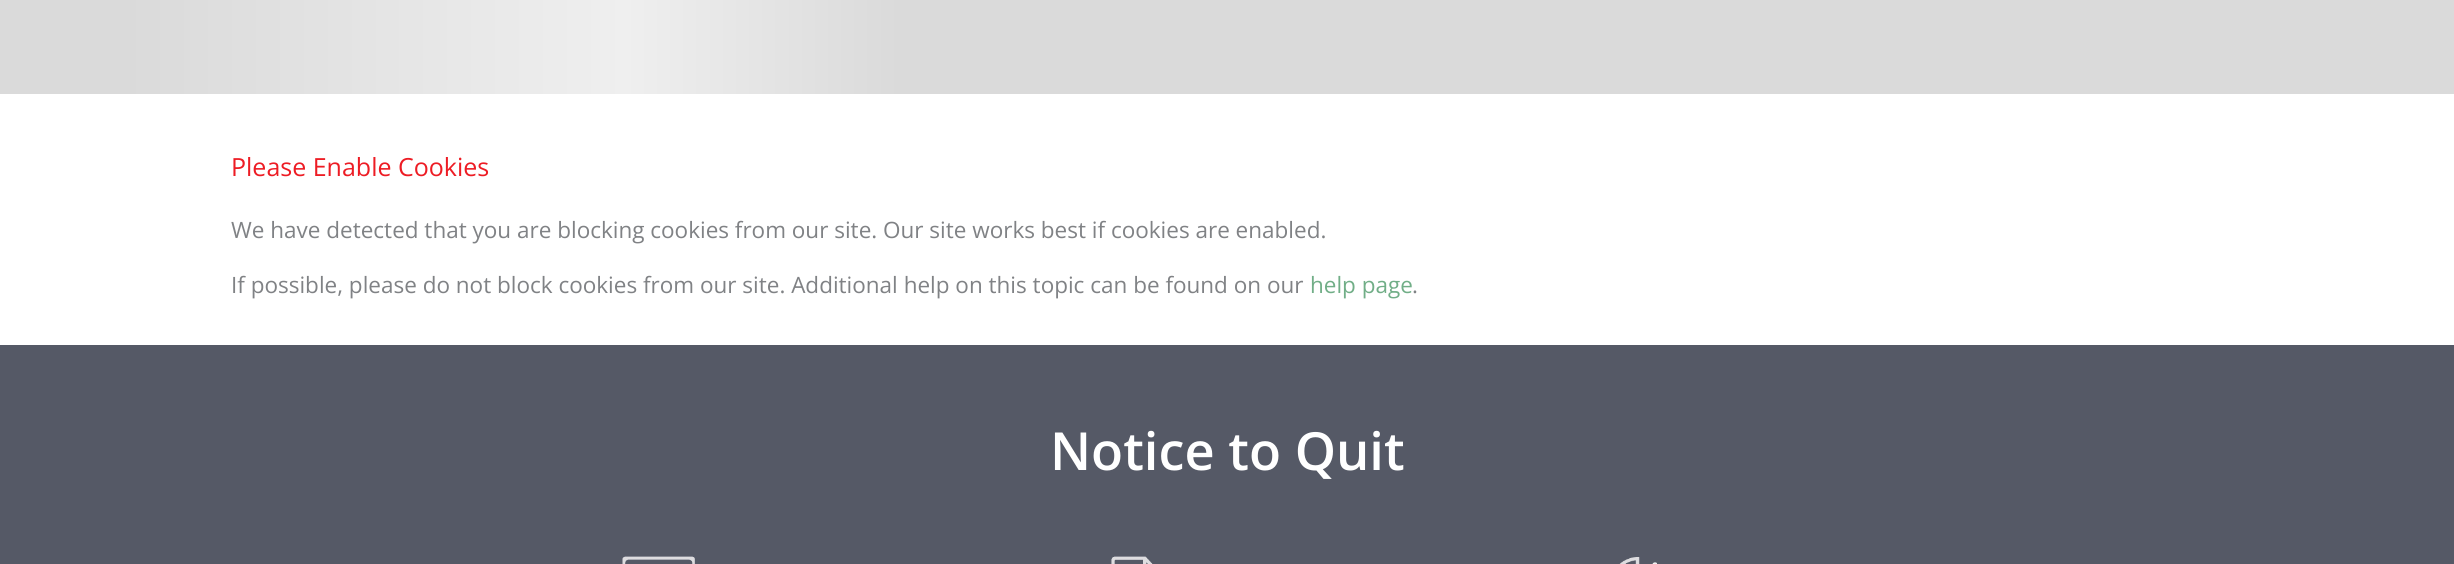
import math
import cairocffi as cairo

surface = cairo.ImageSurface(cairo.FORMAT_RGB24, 2454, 564)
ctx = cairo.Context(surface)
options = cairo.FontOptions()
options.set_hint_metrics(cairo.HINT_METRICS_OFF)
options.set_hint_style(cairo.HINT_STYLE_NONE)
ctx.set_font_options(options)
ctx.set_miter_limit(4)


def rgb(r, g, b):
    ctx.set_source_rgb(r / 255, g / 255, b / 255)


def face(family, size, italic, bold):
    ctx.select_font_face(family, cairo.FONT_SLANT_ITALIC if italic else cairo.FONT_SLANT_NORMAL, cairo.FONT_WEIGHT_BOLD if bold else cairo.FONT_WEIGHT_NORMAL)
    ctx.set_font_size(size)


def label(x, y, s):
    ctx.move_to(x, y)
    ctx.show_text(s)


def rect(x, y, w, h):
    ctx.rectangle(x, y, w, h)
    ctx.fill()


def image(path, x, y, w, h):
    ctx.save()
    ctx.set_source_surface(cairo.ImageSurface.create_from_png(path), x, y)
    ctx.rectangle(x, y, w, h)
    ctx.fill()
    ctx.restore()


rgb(255, 255, 255)
ctx.paint()
gradient = cairo.LinearGradient(0, 47, 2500, 47)
gradient.add_color_stop_rgba(0.05, 0.855, 0.855, 0.855, 1)
gradient.add_color_stop_rgba(0.25, 0.937, 0.937, 0.937, 1)
gradient.add_color_stop_rgba(0.36, 0.855, 0.855, 0.855, 1)
ctx.set_source(gradient)
rect(0, 0, 2454, 94)
face('Open Sans', 25, 0, 0)
rgb(237, 28, 36)
label(231, 176, 'Please Enable Cookies')
face('Open Sans', 22.5, 0, 0)
rgb(128, 130, 133)
label(231, 238, 'We have detected that you are blocking cookies from our site. Our site works best if cookies are enabled.')
label(231, 293, 'If possible, please do not block cookies from our site. Additional help on this topic can be found on our')
rgb(113, 174, 135)
label(1310, 293, 'help page')
rgb(128, 130, 133)
label(1412, 293, '.')
rgb(85, 89, 102)
rect(0, 345, 2454, 219)
face('Open Sans SemiBold', 52.5, 0, 0)
rgb(255, 255, 255)
label(1050, 470, 'Notice to Quit')
image('image0.png', 622, 556, 73, 8)
image('image1.png', 1111, 556, 42, 8)
image('image2.png', 1619, 557, 38, 7)
surface.write_to_png('render.png')
